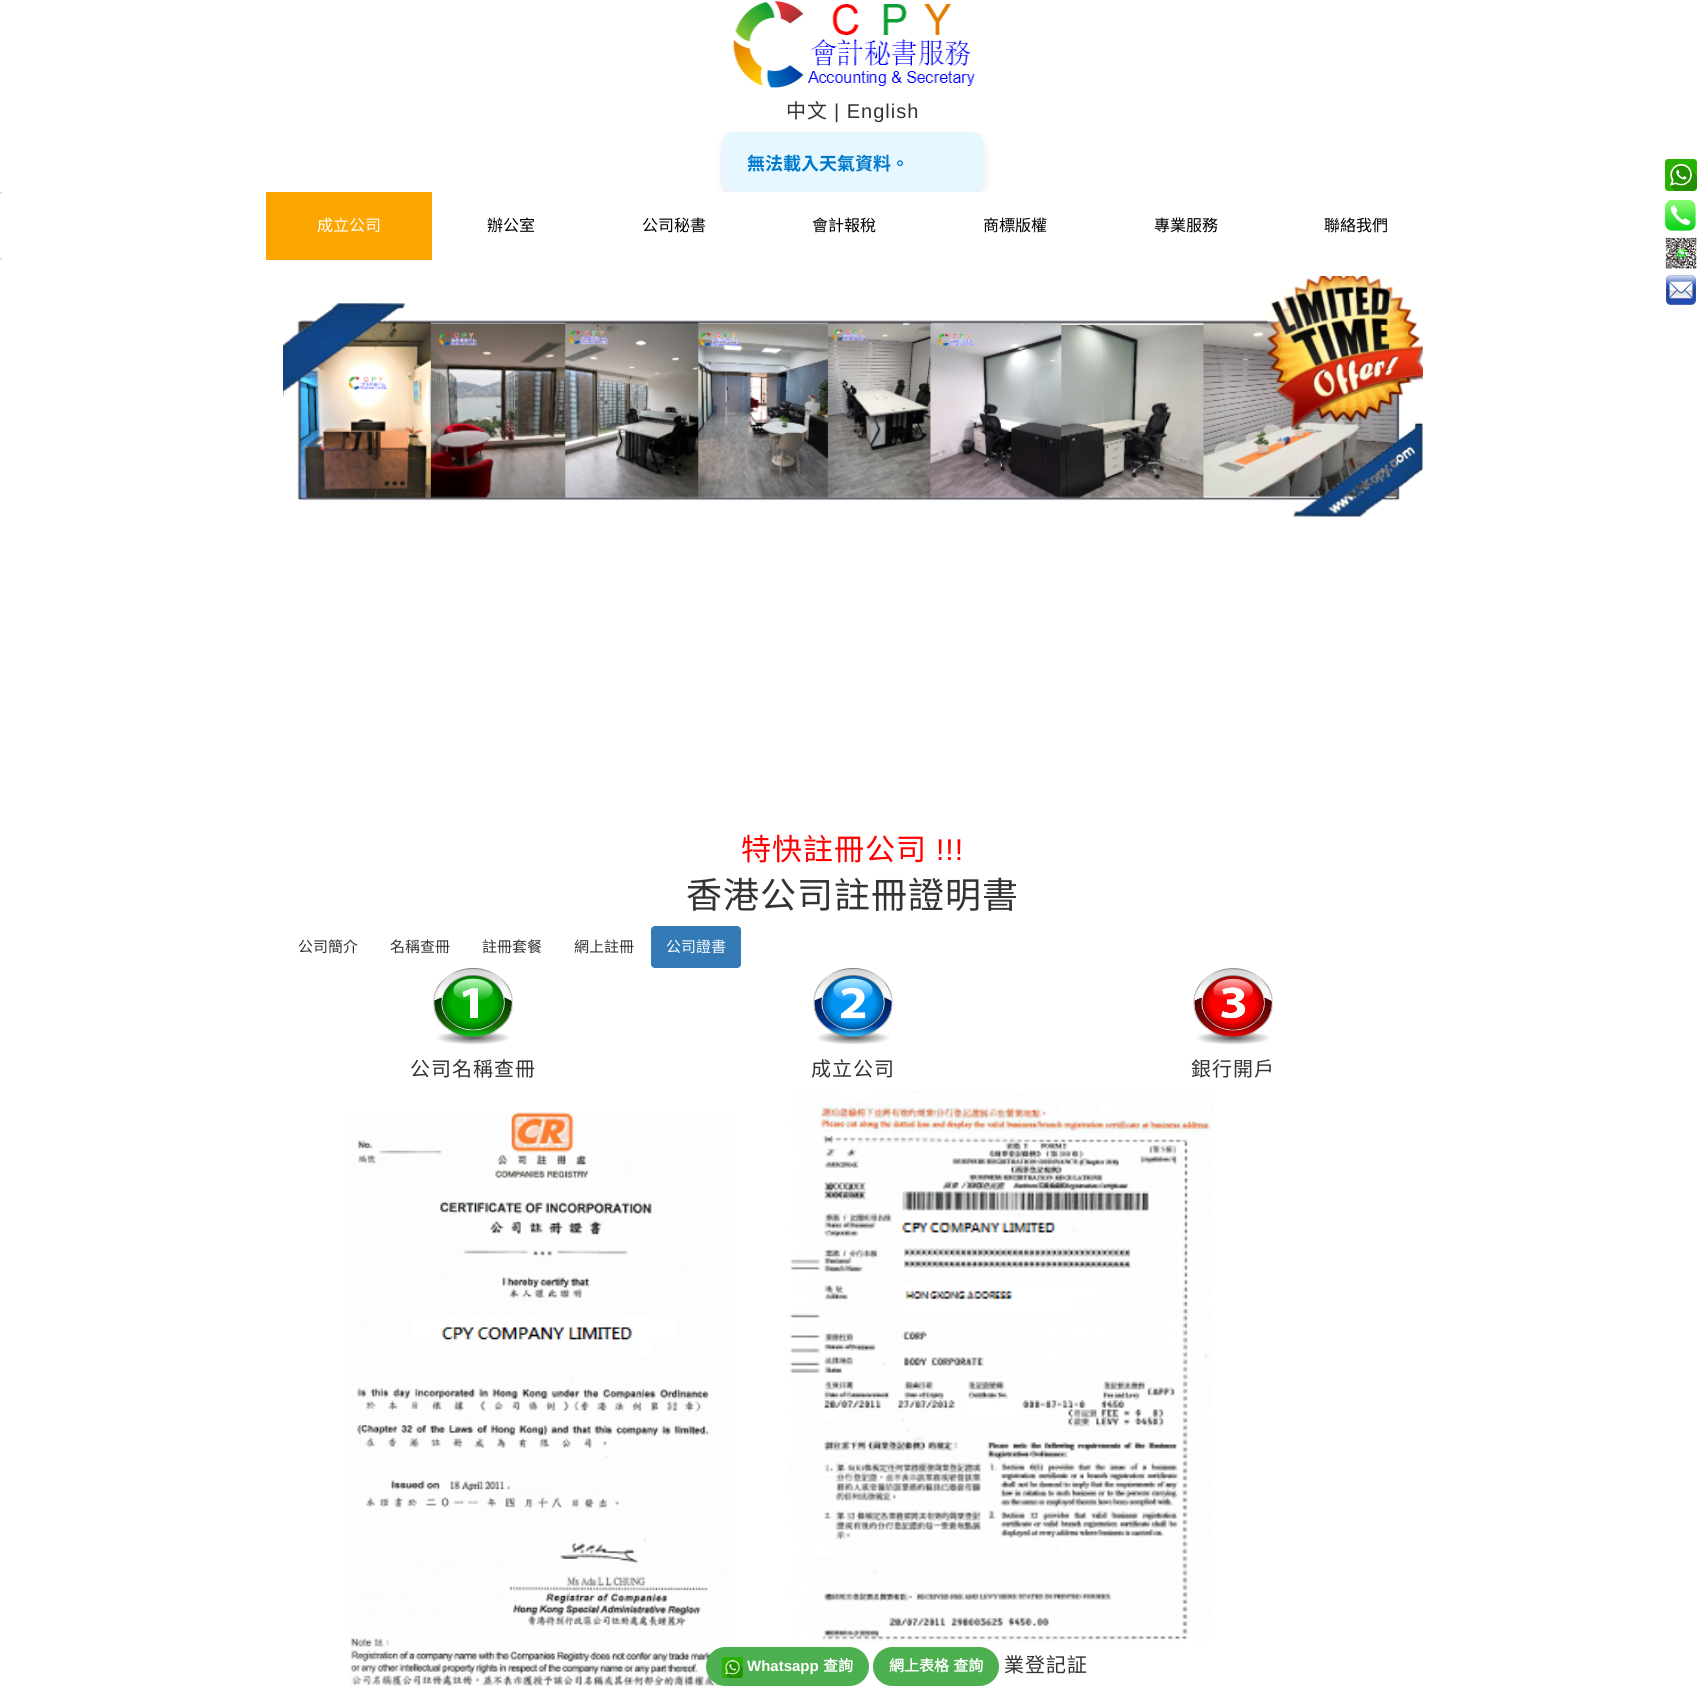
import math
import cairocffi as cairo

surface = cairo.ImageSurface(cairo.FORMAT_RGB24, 1705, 1686)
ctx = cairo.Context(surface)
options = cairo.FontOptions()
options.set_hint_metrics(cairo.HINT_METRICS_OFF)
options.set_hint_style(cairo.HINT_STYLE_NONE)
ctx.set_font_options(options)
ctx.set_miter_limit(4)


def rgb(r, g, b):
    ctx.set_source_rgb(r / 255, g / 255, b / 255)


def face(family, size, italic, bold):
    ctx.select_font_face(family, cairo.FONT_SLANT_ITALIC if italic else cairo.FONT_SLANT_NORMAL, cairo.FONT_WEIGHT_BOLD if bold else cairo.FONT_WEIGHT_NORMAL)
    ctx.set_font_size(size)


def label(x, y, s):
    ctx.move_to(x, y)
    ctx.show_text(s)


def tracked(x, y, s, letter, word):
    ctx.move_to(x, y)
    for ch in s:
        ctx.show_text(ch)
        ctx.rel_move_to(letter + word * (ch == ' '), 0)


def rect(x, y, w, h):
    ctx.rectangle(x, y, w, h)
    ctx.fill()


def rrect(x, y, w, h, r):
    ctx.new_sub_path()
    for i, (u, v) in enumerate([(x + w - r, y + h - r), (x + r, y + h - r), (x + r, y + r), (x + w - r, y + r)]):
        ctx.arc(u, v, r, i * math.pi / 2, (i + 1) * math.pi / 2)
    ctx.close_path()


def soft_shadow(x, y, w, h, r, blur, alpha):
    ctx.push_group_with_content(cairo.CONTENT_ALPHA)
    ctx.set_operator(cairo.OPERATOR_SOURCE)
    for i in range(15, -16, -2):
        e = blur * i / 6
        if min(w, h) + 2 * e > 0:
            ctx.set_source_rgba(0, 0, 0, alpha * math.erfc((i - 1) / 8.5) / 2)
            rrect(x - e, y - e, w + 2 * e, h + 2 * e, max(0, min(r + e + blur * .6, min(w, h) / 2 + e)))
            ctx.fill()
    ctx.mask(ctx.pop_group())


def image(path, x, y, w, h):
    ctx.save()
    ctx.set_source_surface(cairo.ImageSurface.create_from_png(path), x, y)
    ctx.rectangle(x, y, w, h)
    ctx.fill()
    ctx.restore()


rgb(255, 255, 255)
ctx.paint()
image('image0.png', 733, 1, 243, 87)
face('Noto Sans CJK HK', 20, 0, 0)
rgb(51, 51, 51)
tracked(786, 118, '中文', 1, 0)
face('Liberation Sans', 20, 0, 0)
tracked(834, 118, '| English', 1, 0)
rgb(0, 0, 0)
soft_shadow(722, 136, 262, 60, 12, 4, 0.1)
rgb(230, 247, 255)
rrect(722, 132, 262, 60, 12)
ctx.fill()
face('Noto Sans HK', 18, 0, 1)
rgb(0, 122, 204)
label(747, 170, '無法載入天氣資料。')
rgb(222, 217, 203)
rect(0, 192, 4, 68)
rgb(255, 255, 255)
rrect(0, 192, 1705, 68, 4)
ctx.fill()
rgb(254, 166, 0)
rect(266, 192, 166, 68)
face('Noto Sans CJK HK', 16, 0, 0)
rgb(255, 255, 255)
label(317, 231, '成立公司')
rgb(0, 0, 0)
label(487, 231, '辦公室')
label(642, 231, '公司秘書')
label(812, 231, '會計報稅')
label(983, 231, '商標版權')
label(1154, 231, '專業服務')
label(1324, 231, '聯絡我們')
image('image1.png', 1665, 159, 32, 32)
image('image2.png', 1665, 200, 31, 31)
image('image3.png', 1665, 237, 32, 32)
image('image4.png', 1666, 275, 30, 30)
image('image5.png', 283, 276, 1140, 241)
face('Noto Sans CJK HK', 30, 0, 0)
rgb(255, 0, 0)
tracked(741, 860, '特快註冊公司', 1, 0)
face('Liberation Sans', 30, 0, 0)
tracked(936, 860, '!!!', 1, 0)
face('Noto Sans CJK HK', 36, 0, 0)
rgb(51, 51, 51)
tracked(686, 908, '香港公司註冊證明書', 1, 0)
face('Noto Sans CJK HK', 15, 0, 0)
label(298, 952, '公司簡介')
label(390, 952, '名稱查冊')
label(482, 952, '註冊套餐')
label(574, 952, '網上註冊')
rgb(51, 122, 183)
rrect(651, 926, 90, 42, 4)
ctx.fill()
rgb(255, 255, 255)
label(666, 952, '公司證書')
image('image6.png', 433, 968, 80, 77)
face('Noto Sans CJK HK', 20, 0, 0)
rgb(51, 51, 51)
tracked(410, 1076, '公司名稱查冊', 1, 0)
image('image7.png', 813, 968, 80, 77)
tracked(811, 1076, '成立公司', 1, 0)
image('image8.png', 1193, 968, 80, 77)
tracked(1191, 1076, '銀行開戶', 1, 0)
image('image9.png', 350, 1112, 385, 574)
image('image10.png', 789, 1090, 424, 551)
tracked(1004, 1672, '業登記証', 1, 0)
rgb(76, 175, 80)
rrect(706, 1647, 163, 39, 19.5)
ctx.fill()
image('image11.png', 721, 1657, 22, 21)
face('Liberation Sans', 15, 0, 1)
rgb(255, 255, 255)
label(747, 1671, 'Whatsapp')
face('Noto Sans CJK HK', 15, 0, 1)
label(823, 1671, '查詢')
rgb(76, 175, 80)
rrect(873, 1647, 126, 39, 19.5)
ctx.fill()
rgb(255, 255, 255)
tracked(889, 1671, '網上表格 查詢', 0, 1)
surface.write_to_png('render.png')
